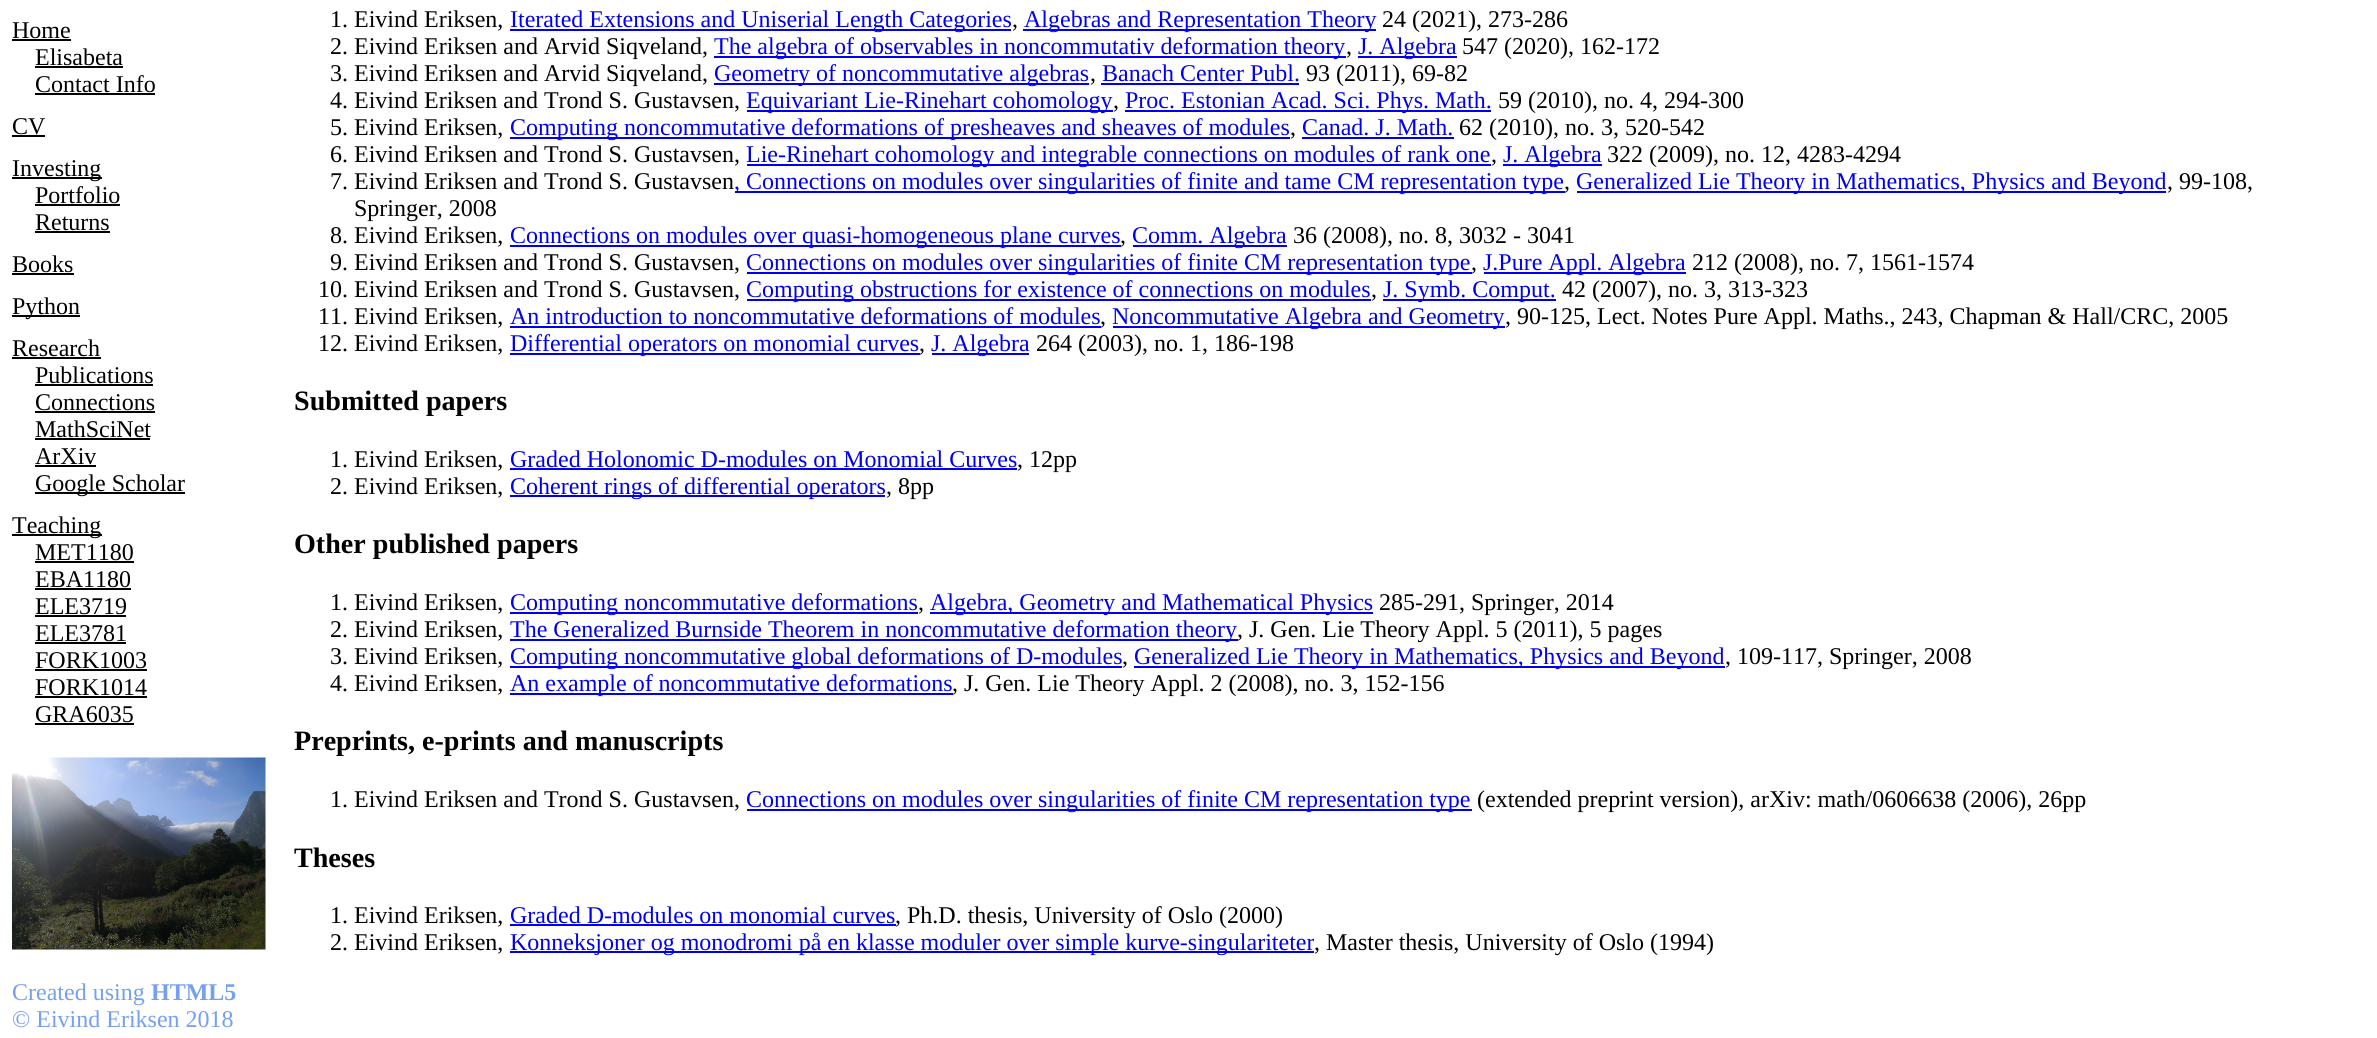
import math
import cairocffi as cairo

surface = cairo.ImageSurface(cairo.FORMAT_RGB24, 2377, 1038)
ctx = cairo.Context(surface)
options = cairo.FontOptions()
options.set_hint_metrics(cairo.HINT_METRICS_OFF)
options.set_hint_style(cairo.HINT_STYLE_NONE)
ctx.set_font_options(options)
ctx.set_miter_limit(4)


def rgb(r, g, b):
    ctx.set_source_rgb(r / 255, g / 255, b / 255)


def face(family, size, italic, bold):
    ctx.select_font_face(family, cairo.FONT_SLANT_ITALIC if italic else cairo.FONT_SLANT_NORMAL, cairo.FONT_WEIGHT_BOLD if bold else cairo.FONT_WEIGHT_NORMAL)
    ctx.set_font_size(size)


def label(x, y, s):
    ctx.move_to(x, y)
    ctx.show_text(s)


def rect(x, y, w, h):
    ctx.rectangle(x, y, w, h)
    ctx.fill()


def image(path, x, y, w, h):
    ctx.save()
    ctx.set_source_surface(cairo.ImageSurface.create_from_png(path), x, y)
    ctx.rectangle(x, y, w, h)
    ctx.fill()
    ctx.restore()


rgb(255, 255, 255)
ctx.paint()
face('Liberation Serif', 24, 0, 0)
rgb(0, 0, 0)
label(12, 38, 'Home')
rect(12, 39, 59, 2)
label(35, 65, 'Elisabeta')
rect(35, 66, 88, 2)
label(35, 92, 'Contact Info')
rect(35, 93, 120, 2)
label(12, 134, 'CV')
rect(12, 135, 33, 2)
rect(12, 177, 90, 2)
label(12, 176, 'Investing')
label(35, 203, 'Portfolio')
rect(35, 204, 85, 2)
label(35, 230, 'Returns')
rect(35, 231, 75, 2)
label(12, 272, 'Books')
rect(12, 273, 62, 2)
rect(12, 315, 68, 2)
label(12, 314, 'Python')
label(12, 356, 'Research')
rect(12, 357, 89, 2)
label(35, 383, 'Publications')
rect(35, 384, 118, 2)
label(35, 410, 'Connections')
rect(35, 411, 120, 2)
label(35, 437, 'MathSciNet')
rect(35, 438, 115, 2)
label(35, 464, 'ArXiv')
rect(35, 465, 61, 2)
rect(35, 492, 150, 2)
label(35, 491, 'Google Scholar')
rect(12, 534, 90, 2)
label(12, 533, 'Teaching')
label(35, 560, 'MET1180')
rect(35, 561, 99, 2)
label(35, 587, 'EBA1180')
rect(35, 588, 96, 2)
label(35, 614, 'ELE3719')
rect(35, 615, 91, 2)
label(35, 641, 'ELE3781')
rect(35, 642, 91, 2)
label(35, 668, 'FORK1003')
rect(35, 669, 112, 2)
label(35, 695, 'FORK1014')
rect(35, 696, 112, 2)
label(35, 722, 'GRA6035')
rect(35, 723, 99, 2)
image('image0.png', 12, 757, 254, 193)
rgb(118, 160, 239)
label(12, 1000, 'Created using')
face('Liberation Serif', 24, 0, 1)
label(151, 1000, 'HTML5')
face('Liberation Serif', 24, 0, 0)
label(12, 1027, '© Eivind Eriksen 2018')
rgb(0, 0, 0)
label(330, 27, '1. Eivind Eriksen,')
rgb(0, 0, 238)
rect(510, 29, 501, 2)
label(510, 27, 'Iterated Extensions and Uniserial Length Categories')
rgb(0, 0, 0)
label(1012, 27, ',')
rgb(0, 0, 238)
rect(1023, 29, 353, 2)
label(1024, 27, 'Algebras and Representation Theory')
rgb(0, 0, 0)
label(1382, 27, '24 (2021), 273-286')
label(330, 54, '2. Eivind Eriksen and Arvid Siqveland,')
rgb(0, 0, 238)
rect(714, 56, 632, 2)
label(714, 54, 'The algebra of observables in noncommutativ deformation theory')
rgb(0, 0, 0)
label(1346, 54, ',')
rgb(0, 0, 238)
rect(1358, 56, 99, 2)
label(1358, 54, 'J. Algebra')
rgb(0, 0, 0)
label(1462, 54, '547 (2020), 162-172')
label(330, 81, '3. Eivind Eriksen and Arvid Siqveland,')
rgb(0, 0, 238)
rect(714, 83, 375, 2)
label(714, 81, 'Geometry of noncommutative algebras')
rgb(0, 0, 0)
label(1090, 81, ',')
rgb(0, 0, 238)
label(1102, 81, 'Banach Center Publ.')
rect(1101, 83, 198, 2)
rgb(0, 0, 0)
label(1306, 81, '93 (2011), 69-82')
label(330, 108, '4. Eivind Eriksen and Trond S. Gustavsen,')
rgb(0, 0, 238)
rect(747, 110, 366, 2)
label(746, 108, 'Equivariant Lie-Rinehart cohomology')
rgb(0, 0, 0)
label(1113, 108, ',')
rgb(0, 0, 238)
rect(1125, 110, 366, 2)
label(1125, 108, 'Proc. Estonian Acad. Sci. Phys. Math.')
rgb(0, 0, 0)
label(1498, 108, '59 (2010), no. 4, 294-300')
label(330, 135, '5. Eivind Eriksen,')
rgb(0, 0, 238)
rect(510, 137, 780, 2)
label(510, 135, 'Computing noncommutative deformations of presheaves and sheaves of modules')
rgb(0, 0, 0)
label(1290, 135, ',')
rgb(0, 0, 238)
label(1302, 135, 'Canad. J. Math.')
rect(1302, 137, 152, 2)
rgb(0, 0, 0)
label(1459, 135, '62 (2010), no. 3, 520-542')
label(330, 162, '6. Eivind Eriksen and Trond S. Gustavsen,')
rgb(0, 0, 238)
rect(747, 164, 744, 2)
label(746, 162, 'Lie-Rinehart cohomology and integrable connections on modules of rank one')
rgb(0, 0, 0)
label(1491, 162, ',')
rgb(0, 0, 238)
rect(1503, 164, 99, 2)
label(1503, 162, 'J. Algebra')
rgb(0, 0, 0)
label(1607, 162, '322 (2009), no. 12, 4283-4294')
label(330, 189, '7. Eivind Eriksen and Trond S. Gustavsen')
rgb(0, 0, 238)
rect(735, 191, 830, 2)
label(734, 189, ', Connections on modules over singularities of finite and tame CM representation type')
rgb(0, 0, 0)
label(1564, 189, ',')
rgb(0, 0, 238)
rect(1577, 191, 589, 2)
label(1576, 189, 'Generalized Lie Theory in Mathematics, Physics and Beyond')
rgb(0, 0, 0)
label(2167, 189, ', 99-108,')
label(354, 216, 'Springer, 2008')
label(330, 243, '8. Eivind Eriksen,')
rgb(0, 0, 238)
rect(510, 245, 611, 2)
label(510, 243, 'Connections on modules over quasi-homogeneous plane curves')
rgb(0, 0, 0)
label(1120, 243, ',')
rgb(0, 0, 238)
rect(1133, 245, 154, 2)
label(1132, 243, 'Comm. Algebra')
rgb(0, 0, 0)
label(1293, 243, '36 (2008), no. 8, 3032 - 3041')
label(330, 270, '9. Eivind Eriksen and Trond S. Gustavsen,')
rgb(0, 0, 238)
rect(747, 272, 725, 2)
label(746, 270, 'Connections on modules over singularities of finite CM representation type')
rgb(0, 0, 0)
label(1471, 270, ',')
rgb(0, 0, 238)
rect(1484, 272, 202, 2)
label(1483, 270, 'J.Pure Appl. Algebra')
rgb(0, 0, 0)
label(1692, 270, '212 (2008), no. 7, 1561-1574')
label(318, 297, '10. Eivind Eriksen and Trond S. Gustavsen,')
rgb(0, 0, 238)
rect(747, 299, 624, 2)
label(746, 297, 'Computing obstructions for existence of connections on modules')
rgb(0, 0, 0)
label(1371, 297, ',')
rgb(0, 0, 238)
rect(1383, 299, 173, 2)
label(1383, 297, 'J. Symb. Comput.')
rgb(0, 0, 0)
label(1562, 297, '42 (2007), no. 3, 313-323')
label(318, 324, '11. Eivind Eriksen,')
rgb(0, 0, 238)
label(510, 324, 'An introduction to noncommutative deformations of modules')
rect(510, 326, 591, 2)
rgb(0, 0, 0)
label(1100, 324, ',')
rgb(0, 0, 238)
rect(1113, 326, 392, 2)
label(1112, 324, 'Noncommutative Algebra and Geometry')
rgb(0, 0, 0)
label(1505, 324, ', 90-125, Lect. Notes Pure Appl. Maths., 243, Chapman & Hall/CRC, 2005')
label(318, 351, '12. Eivind Eriksen,')
rgb(0, 0, 238)
rect(510, 353, 410, 2)
label(510, 351, 'Differential operators on monomial curves')
rgb(0, 0, 0)
label(919, 351, ',')
rgb(0, 0, 238)
rect(932, 353, 97, 2)
label(931, 351, 'J. Algebra')
rgb(0, 0, 0)
label(1036, 351, '264 (2003), no. 1, 186-198')
face('Liberation Serif', 28.1, 0, 1)
label(294, 410, 'Submitted papers')
face('Liberation Serif', 24, 0, 0)
label(330, 467, '1. Eivind Eriksen,')
rgb(0, 0, 238)
label(510, 467, 'Graded Holonomic D-modules on Monomial Curves')
rect(510, 468, 507, 2)
rgb(0, 0, 0)
label(1017, 467, ', 12pp')
label(330, 494, '2. Eivind Eriksen,')
rgb(0, 0, 238)
rect(510, 495, 375, 2)
label(510, 494, 'Coherent rings of differential operators')
rgb(0, 0, 0)
label(886, 494, ', 8pp')
face('Liberation Serif', 28.1, 0, 1)
label(294, 553, 'Other published papers')
face('Liberation Serif', 24, 0, 0)
label(330, 610, '1. Eivind Eriksen,')
rgb(0, 0, 238)
rect(510, 612, 408, 2)
label(510, 610, 'Computing noncommutative deformations')
rgb(0, 0, 0)
label(918, 610, ',')
rgb(0, 0, 238)
rect(930, 612, 443, 2)
label(930, 610, 'Algebra, Geometry and Mathematical Physics')
rgb(0, 0, 0)
label(1379, 610, '285-291, Springer, 2014')
label(330, 637, '2. Eivind Eriksen,')
rgb(0, 0, 238)
rect(510, 639, 728, 2)
label(510, 637, 'The Generalized Burnside Theorem in noncommutative deformation theory')
rgb(0, 0, 0)
label(1237, 637, ', J. Gen. Lie Theory Appl. 5 (2011), 5 pages')
label(330, 664, '3. Eivind Eriksen,')
rgb(0, 0, 238)
rect(510, 666, 612, 2)
label(510, 664, 'Computing noncommutative global deformations of D-modules')
rgb(0, 0, 0)
label(1122, 664, ',')
rgb(0, 0, 238)
rect(1134, 666, 591, 2)
label(1134, 664, 'Generalized Lie Theory in Mathematics, Physics and Beyond')
rgb(0, 0, 0)
label(1725, 664, ', 109-117, Springer, 2008')
label(330, 691, '4. Eivind Eriksen,')
rgb(0, 0, 238)
rect(510, 693, 443, 2)
label(510, 691, 'An example of noncommutative deformations')
rgb(0, 0, 0)
label(952, 691, ', J. Gen. Lie Theory Appl. 2 (2008), no. 3, 152-156')
face('Liberation Serif', 28.1, 0, 1)
label(294, 750, 'Preprints, e-prints and manuscripts')
face('Liberation Serif', 24, 0, 0)
label(330, 807, '1. Eivind Eriksen and Trond S. Gustavsen,')
rgb(0, 0, 238)
rect(747, 809, 725, 2)
label(746, 807, 'Connections on modules over singularities of finite CM representation type')
rgb(0, 0, 0)
label(1477, 807, '(extended preprint version), arXiv: math/0606638 (2006), 26pp')
face('Liberation Serif', 28.1, 0, 1)
label(294, 867, 'Theses')
face('Liberation Serif', 24, 0, 0)
label(330, 923, '1. Eivind Eriksen,')
rgb(0, 0, 238)
label(510, 923, 'Graded D-modules on monomial curves')
rect(510, 924, 386, 2)
rgb(0, 0, 0)
label(895, 923, ', Ph.D. thesis, University of Oslo (2000)')
label(330, 950, '2. Eivind Eriksen,')
rgb(0, 0, 238)
rect(510, 951, 804, 2)
label(510, 950, 'Konneksjoner og monodromi på en klasse moduler over simple kurve-singulariteter')
rgb(0, 0, 0)
label(1314, 950, ', Master thesis, University of Oslo (1994)')
surface.write_to_png('render.png')
